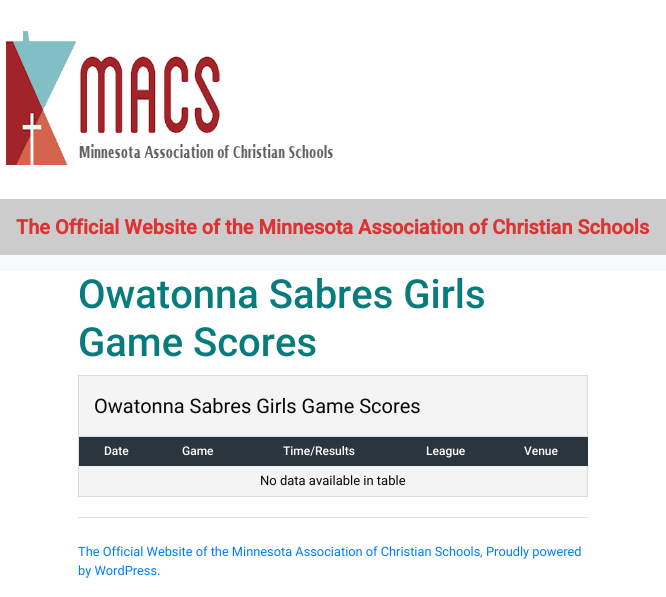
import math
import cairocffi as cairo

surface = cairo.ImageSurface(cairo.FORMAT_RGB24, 666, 597)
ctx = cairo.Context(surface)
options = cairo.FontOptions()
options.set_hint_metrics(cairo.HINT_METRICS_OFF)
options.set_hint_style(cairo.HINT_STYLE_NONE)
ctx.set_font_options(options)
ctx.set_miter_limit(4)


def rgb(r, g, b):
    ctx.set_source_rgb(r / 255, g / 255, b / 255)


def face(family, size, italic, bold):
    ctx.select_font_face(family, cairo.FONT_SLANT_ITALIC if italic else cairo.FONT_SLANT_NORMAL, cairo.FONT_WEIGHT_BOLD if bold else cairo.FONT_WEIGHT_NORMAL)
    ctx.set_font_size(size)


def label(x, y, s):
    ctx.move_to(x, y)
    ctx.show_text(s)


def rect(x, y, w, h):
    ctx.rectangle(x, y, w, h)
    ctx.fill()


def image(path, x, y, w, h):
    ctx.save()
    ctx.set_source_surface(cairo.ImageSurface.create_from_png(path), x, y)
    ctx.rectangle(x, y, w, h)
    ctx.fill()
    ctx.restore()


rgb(255, 255, 255)
ctx.paint()
rgb(204, 204, 204)
rect(6, 31, 214, 134)
image('image0.png', 0, 0, 666, 199)
rect(0, 199, 666, 56)
face('Roboto', 20, 0, 1)
rgb(221, 51, 51)
label(16, 234, 'The Official Website of the Minnesota Association of Christian Schools')
rgb(248, 249, 250)
rect(0, 255, 666, 16)
face('Roboto Medium', 40, 0, 0)
rgb(8, 124, 124)
label(78, 308, 'Owatonna Sabres Girls')
label(78, 356, 'Game Scores')
rgb(244, 244, 244)
rect(79, 376, 508, 60)
rgb(218, 218, 218)
rect(78, 375, 510, 1)
rect(587, 375, 1, 61)
rect(78, 375, 1, 61)
face('Roboto', 20, 0, 0)
rgb(10, 9, 9)
label(94, 413, 'Owatonna Sabres Girls Game Scores')
rgb(244, 244, 244)
rect(79, 466, 508, 30)
rgb(218, 218, 218)
rect(78, 436, 510, 1)
rect(587, 436, 1, 61)
rect(78, 496, 510, 1)
rect(78, 436, 1, 61)
rgb(43, 53, 62)
rect(79, 437, 509, 29)
face('Roboto Medium', 12, 0, 0)
rgb(255, 255, 255)
label(104, 455, 'Date')
label(182, 455, 'Game')
label(283, 455, 'Time/Results')
label(426, 455, 'League')
label(524, 455, 'Venue')
face('Roboto', 13, 0, 0)
rgb(10, 9, 9)
label(260, 485, 'No data available in table')
rgb(222, 226, 230)
rect(78, 517, 510, 1)
face('Roboto', 12.8, 0, 0)
rgb(0, 123, 255)
label(78, 556, 'The Official Website of the Minnesota Association of Christian Schools')
rgb(108, 117, 125)
label(480, 556, ',')
rgb(0, 123, 255)
label(486, 556, 'Proudly powered')
label(78, 575, 'by WordPress.')
surface.write_to_png('render.png')
